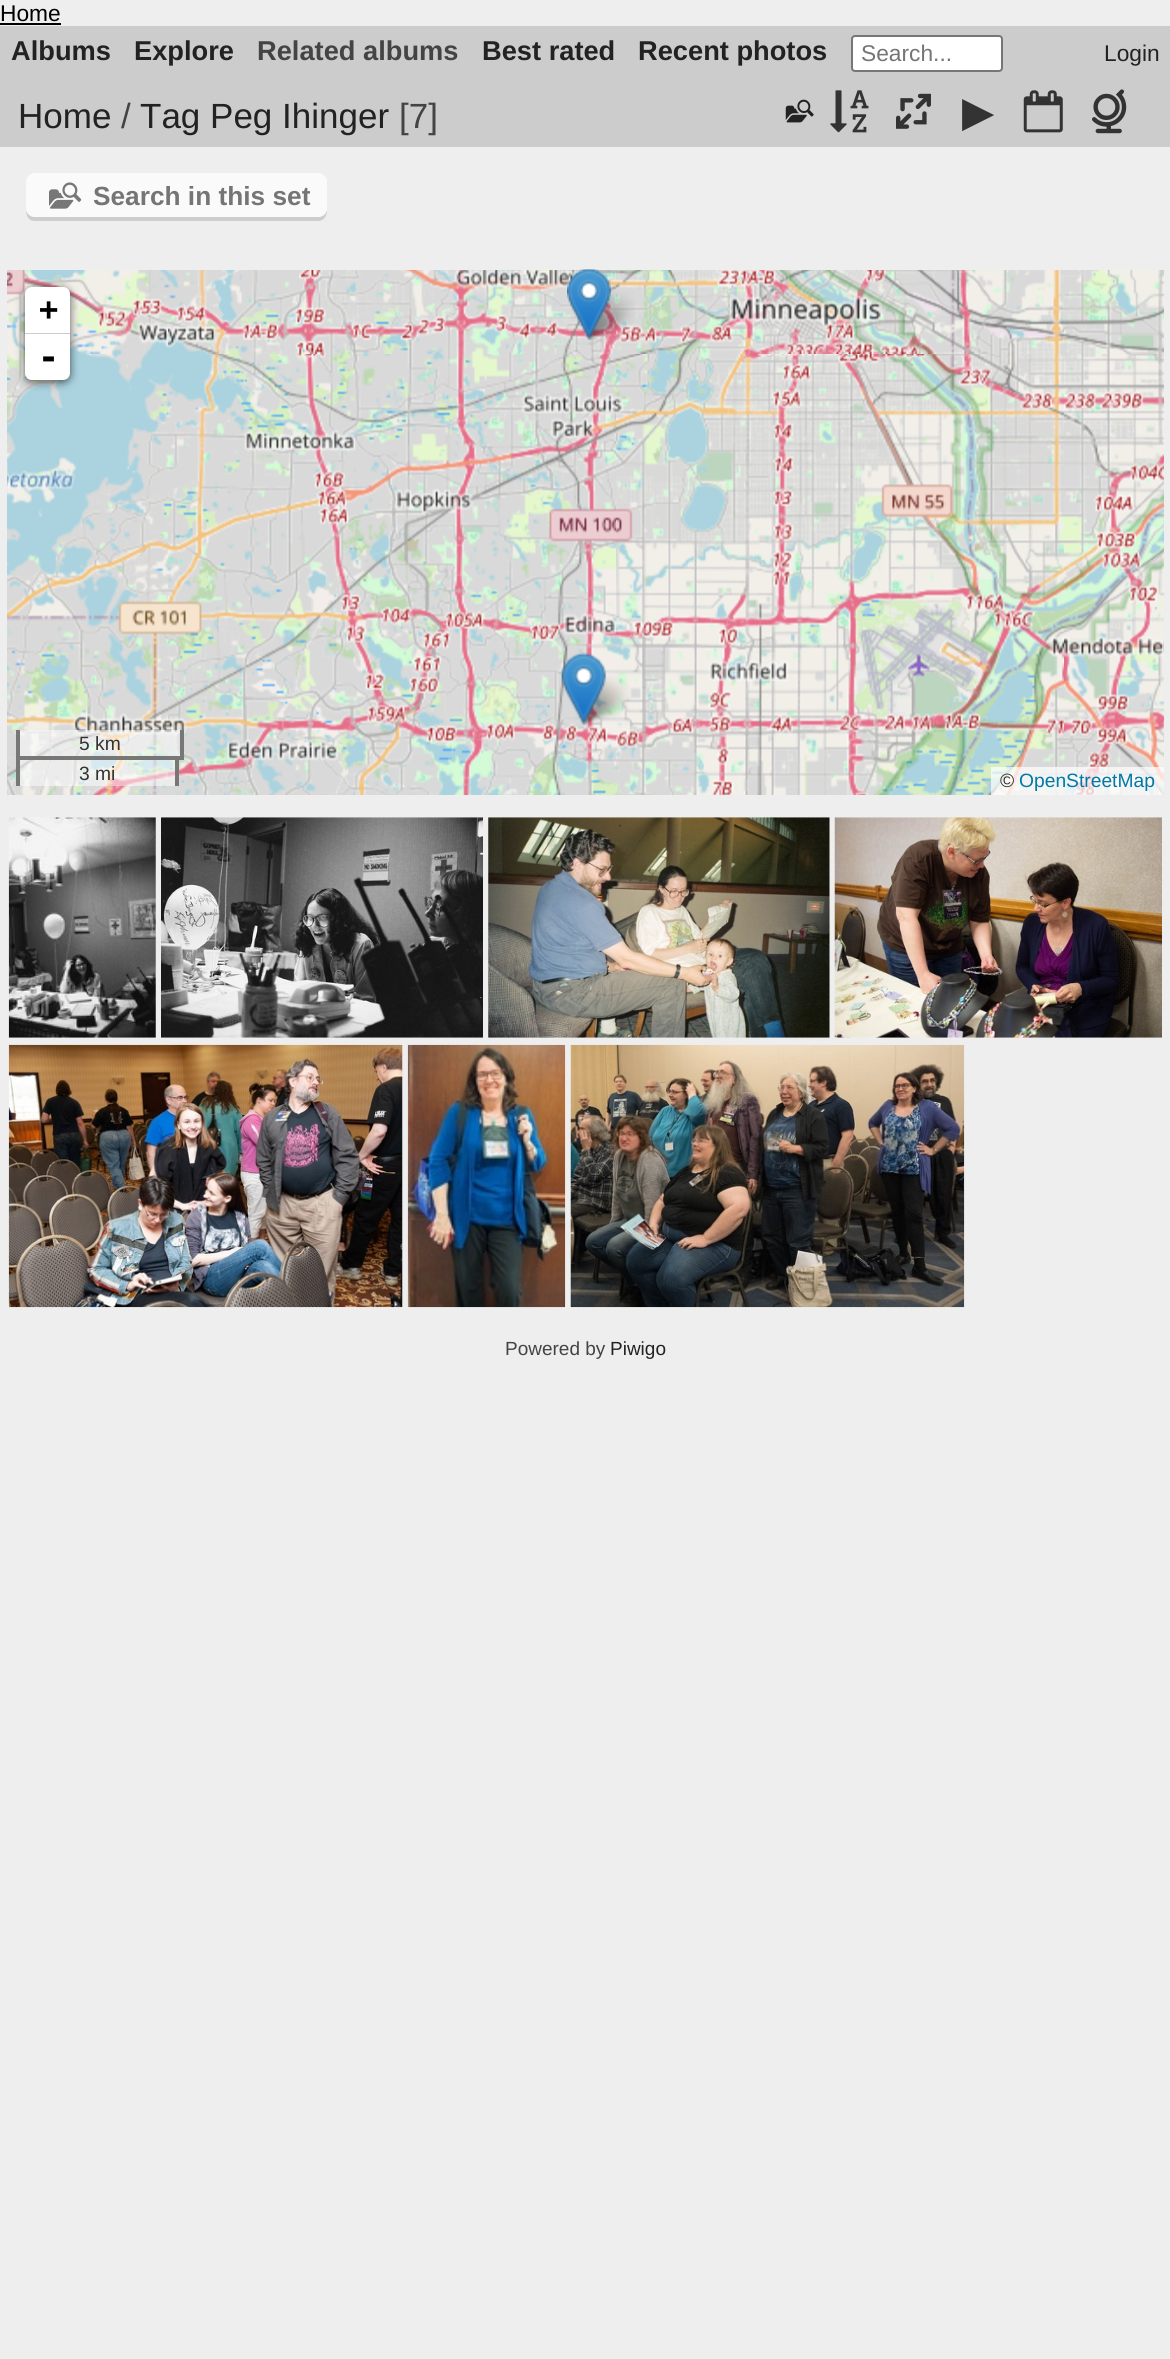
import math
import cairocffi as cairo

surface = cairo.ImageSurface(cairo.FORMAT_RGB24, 1170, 2359)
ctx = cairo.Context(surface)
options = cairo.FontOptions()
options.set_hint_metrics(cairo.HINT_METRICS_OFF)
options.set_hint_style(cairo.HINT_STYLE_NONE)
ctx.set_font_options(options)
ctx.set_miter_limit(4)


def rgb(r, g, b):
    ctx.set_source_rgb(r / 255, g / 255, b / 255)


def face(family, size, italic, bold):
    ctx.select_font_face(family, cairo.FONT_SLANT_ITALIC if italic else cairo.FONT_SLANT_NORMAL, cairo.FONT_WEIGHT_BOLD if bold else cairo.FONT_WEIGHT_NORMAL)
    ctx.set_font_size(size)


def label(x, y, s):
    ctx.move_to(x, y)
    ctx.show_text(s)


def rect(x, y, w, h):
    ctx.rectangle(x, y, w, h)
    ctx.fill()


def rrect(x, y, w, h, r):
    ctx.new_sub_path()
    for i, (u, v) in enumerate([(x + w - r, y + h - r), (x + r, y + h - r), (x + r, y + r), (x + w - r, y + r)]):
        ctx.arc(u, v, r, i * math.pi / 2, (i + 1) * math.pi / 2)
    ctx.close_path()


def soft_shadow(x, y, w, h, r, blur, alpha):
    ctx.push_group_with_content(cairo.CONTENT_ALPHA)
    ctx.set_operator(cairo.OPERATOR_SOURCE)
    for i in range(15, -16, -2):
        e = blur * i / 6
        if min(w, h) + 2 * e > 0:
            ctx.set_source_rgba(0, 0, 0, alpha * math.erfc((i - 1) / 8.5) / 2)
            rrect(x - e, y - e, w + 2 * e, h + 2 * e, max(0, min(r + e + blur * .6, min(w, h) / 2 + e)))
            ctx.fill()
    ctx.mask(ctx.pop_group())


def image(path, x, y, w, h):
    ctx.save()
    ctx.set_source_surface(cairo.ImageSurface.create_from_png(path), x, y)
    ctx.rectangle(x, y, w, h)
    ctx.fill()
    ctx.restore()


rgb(238, 238, 238)
ctx.paint()
face('Liberation Sans', 22.75, 0, 0)
rgb(0, 0, 0)
label(0, 21, 'Home')
rect(0, 23, 61, 2)
rgb(204, 204, 204)
rect(0, 26, 1170, 121)
face('Liberation Sans', 27.25, 0, 1)
rgb(34, 34, 34)
label(11, 60, 'Albums')
label(134, 60, 'Explore')
rgb(68, 68, 68)
label(257, 60, 'Related albums')
rgb(34, 34, 34)
label(482, 60, 'Best rated')
label(638, 60, 'Recent photos')
rgb(255, 255, 255)
rrect(852, 36, 150, 35, 3)
ctx.fill_preserve()
rgb(118, 118, 118)
ctx.stroke()
face('Liberation Sans', 22.75, 0, 0)
rgb(117, 117, 117)
label(861, 61, 'Search...')
rgb(34, 34, 34)
label(1104, 61, 'Login')
face('Liberation Sans', 35, 0, 0)
label(18, 128, 'Home')
rgb(68, 68, 68)
label(121, 128, '/')
rgb(34, 34, 34)
label(140, 128, 'Tag Peg Ihinger')
rgb(68, 68, 68)
label(399, 128, '[7]')
image('image0.png', 785, 99, 29, 24)
image('image1.png', 830, 90, 39, 43)
image('image2.png', 896, 93, 35, 36)
face('DejaVu Sans', 42, 0, 0)
rgb(51, 51, 51)
label(962, 126, '▶')
image('image3.png', 1023, 90, 40, 43)
image('image4.png', 1092, 89, 35, 45)
rgb(205, 205, 205)
ctx.new_path()
ctx.move_to(26, 184)
ctx.line_to(26, 203)
ctx.curve_to(26, 210, 25, 221, 35, 221)
ctx.line_to(318, 221)
ctx.curve_to(324, 221, 327, 216, 327, 210)
ctx.curve_to(326, 214, 323, 217, 318, 217)
ctx.line_to(35, 217)
ctx.curve_to(30, 217, 26, 213, 26, 208)
ctx.close_path()
ctx.fill()
rgb(250, 250, 250)
rrect(26, 173, 301, 44, 9)
ctx.fill()
image('image5.png', 49, 182, 33, 27)
face('Liberation Sans', 26.25, 0, 1)
rgb(117, 117, 117)
label(93, 205, 'Search in this set')
image('image11.png', 168, 270, 448, 84)
image('image12.png', 616, 270, 448, 84)
image('image8.png', 583, 290, 52, 50)
image('image6.png', 567, 269, 44, 71)
image('image15.png', 168, 354, 448, 441)
image('image16.png', 616, 354, 448, 441)
image('image9.png', 577, 675, 52, 50)
image('image7.png', 561, 652, 45, 73)
image('image10.png', 7, 270, 161, 84)
image('image13.png', 1064, 270, 100, 84)
image('image14.png', 7, 354, 161, 441)
image('image17.png', 1064, 354, 100, 441)
rgb(0, 0, 0)
soft_shadow(25, 289, 45, 93, 7, 4.5, 0.65)
rgb(255, 255, 255)
ctx.new_path()
ctx.move_to(32, 287)
ctx.line_to(63, 287)
ctx.curve_to(67, 287, 70, 290, 70, 294)
ctx.line_to(70, 334)
ctx.line_to(25, 334)
ctx.line_to(25, 294)
ctx.curve_to(25, 290, 28, 287, 32, 287)
ctx.close_path()
ctx.fill()
rgb(204, 204, 204)
rect(25, 333, 45, 1)
face('DejaVu Sans Mono', 32, 0, 1)
rgb(0, 0, 0)
label(39, 320, '+')
rgb(255, 255, 255)
ctx.new_path()
ctx.move_to(25, 334)
ctx.line_to(70, 334)
ctx.line_to(70, 373)
ctx.curve_to(70, 377, 67, 380, 63, 380)
ctx.line_to(32, 380)
ctx.curve_to(28, 380, 25, 377, 25, 373)
ctx.close_path()
ctx.fill()
face('DejaVu Sans Mono', 35, 0, 1)
rgb(0, 0, 0)
label(38, 369, '-')
ctx.set_source_rgba(1, 1, 1, 0.5)
rect(20, 730, 160, 26)
rgb(119, 119, 119)
rect(180, 730, 4, 30)
rect(179, 756, 5, 4)
rect(16, 730, 4, 30)
face('Liberation Sans', 19.25, 0, 0)
rgb(51, 51, 51)
label(79, 750, '5 km')
ctx.set_source_rgba(1, 1, 1, 0.5)
rect(20, 760, 155, 26)
rgb(119, 119, 119)
rect(16, 756, 163, 4)
rect(175, 756, 4, 30)
rect(16, 756, 4, 30)
rgb(51, 51, 51)
label(79, 780, '3 mi')
ctx.set_source_rgba(1, 1, 1, 0.7)
rect(991, 767, 173, 28)
rgb(51, 51, 51)
label(1000, 787, '©')
rgb(0, 120, 168)
label(1019, 787, 'OpenStreetMap')
image('image18.png', 8, 817, 148, 221)
image('image19.png', 161, 817, 322, 221)
image('image20.png', 488, 817, 342, 221)
image('image21.png', 834, 817, 328, 221)
image('image22.png', 8, 1044, 395, 264)
image('image23.png', 407, 1044, 159, 264)
image('image24.png', 570, 1044, 395, 264)
face('Liberation Sans', 19, 0, 0)
rgb(68, 68, 68)
label(505, 1355, 'Powered by')
rgb(34, 34, 34)
label(610, 1355, 'Piwigo')
surface.write_to_png('render.png')
